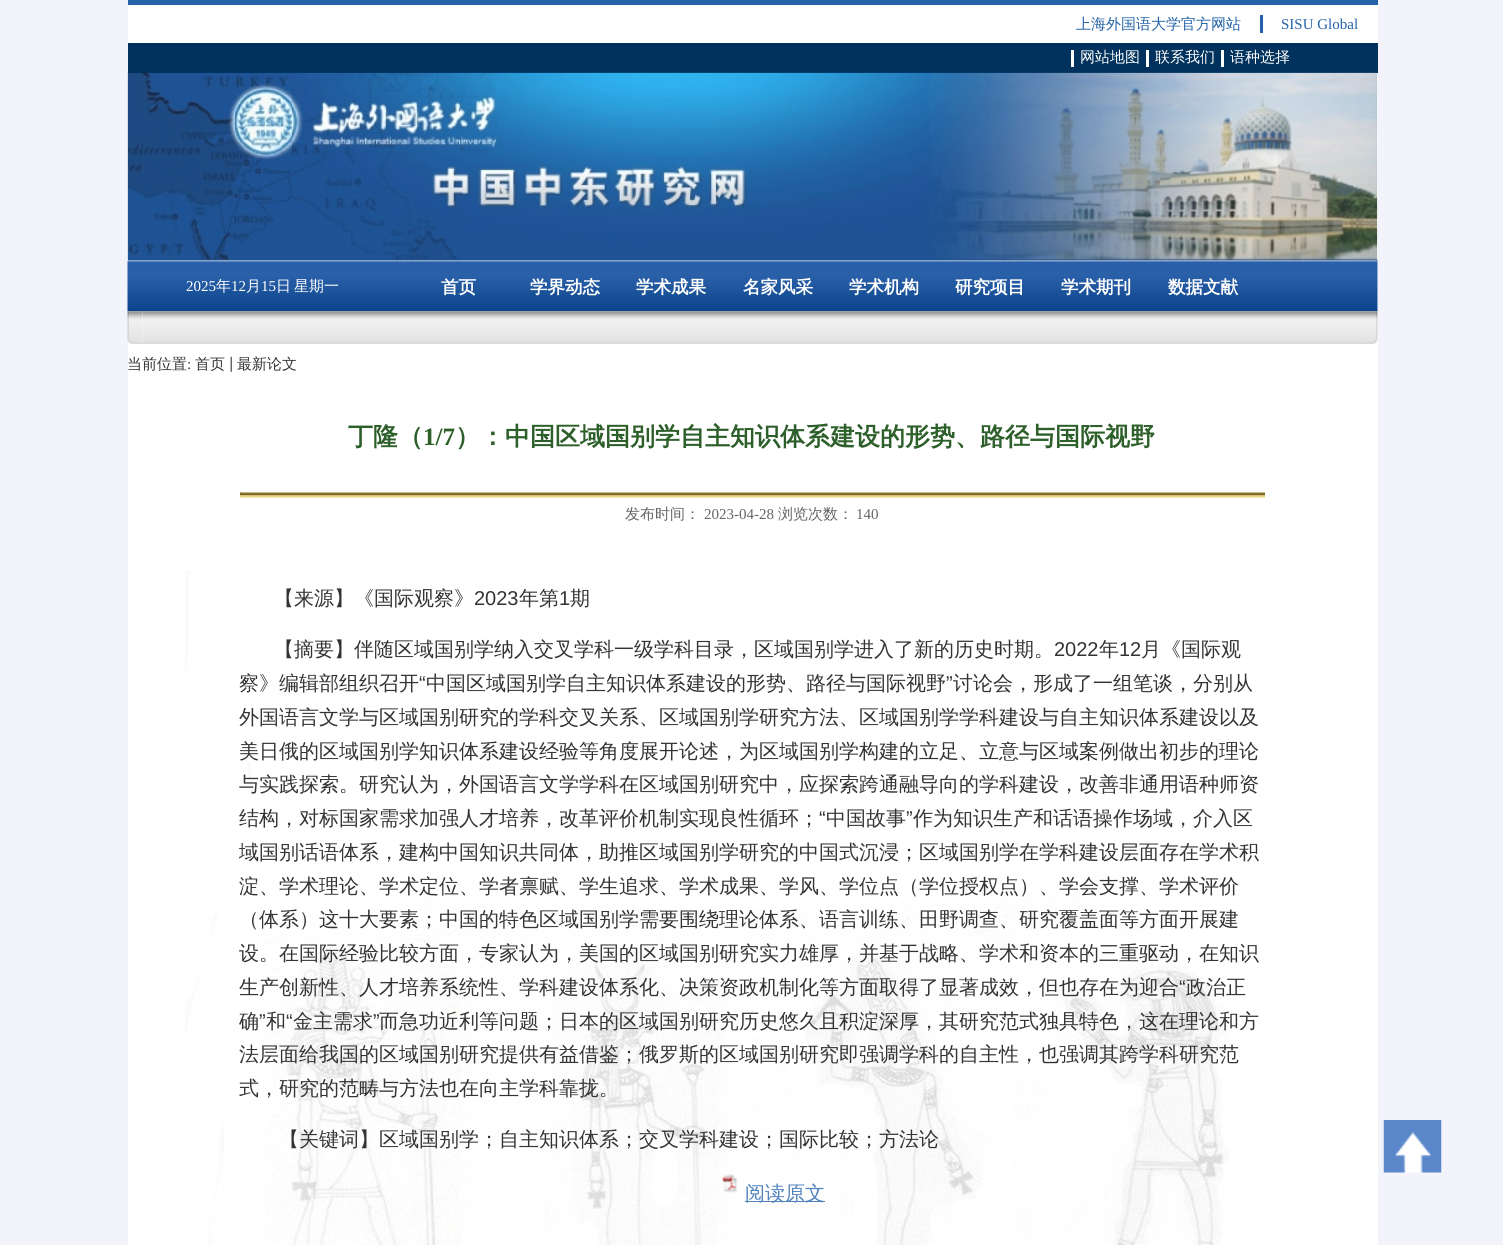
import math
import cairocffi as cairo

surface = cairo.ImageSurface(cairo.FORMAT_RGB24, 1503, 1245)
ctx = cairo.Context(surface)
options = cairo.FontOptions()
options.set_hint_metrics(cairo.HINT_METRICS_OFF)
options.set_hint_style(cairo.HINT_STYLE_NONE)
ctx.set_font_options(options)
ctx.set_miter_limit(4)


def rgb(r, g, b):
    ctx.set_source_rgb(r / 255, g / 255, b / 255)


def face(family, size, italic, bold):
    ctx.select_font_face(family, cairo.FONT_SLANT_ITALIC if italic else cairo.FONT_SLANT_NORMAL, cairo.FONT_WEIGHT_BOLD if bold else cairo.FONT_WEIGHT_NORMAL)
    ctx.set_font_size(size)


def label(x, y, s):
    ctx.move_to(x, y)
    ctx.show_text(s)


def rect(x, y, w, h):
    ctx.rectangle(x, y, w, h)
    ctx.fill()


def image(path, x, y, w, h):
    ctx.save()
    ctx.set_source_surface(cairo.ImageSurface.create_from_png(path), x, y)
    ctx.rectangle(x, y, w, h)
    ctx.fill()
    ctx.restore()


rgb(243, 243, 251)
ctx.paint()
rgb(255, 255, 255)
rect(128, 5, 1250, 1240)
rgb(35, 98, 167)
rect(128, 0, 1250, 5)
face('WenQuanYi Zen Hei Medium', 15, 0, 0)
label(1076, 29, '上海外国语大学官方网站')
rect(1260, 15, 3, 18)
face('Liberation Serif', 15, 0, 0)
label(1281, 29, 'SISU Global')
rgb(0, 50, 93)
rect(128, 43, 1250, 30)
rgb(255, 255, 255)
rect(1071, 50, 3, 17)
face('WenQuanYi Zen Hei Medium', 15, 0, 0)
label(1080, 62, '网站地图')
rect(1146, 50, 3, 17)
label(1155, 62, '联系我们')
rect(1221, 50, 3, 17)
label(1230, 62, '语种选择')
image('image0.png', 127, 72, 1251, 188)
rgb(131, 161, 197)
rect(128, 260, 1250, 1)
image('image1.png', 127, 261, 1251, 51)
face('Liberation Serif', 15, 0, 0)
rgb(255, 255, 255)
label(186, 291, '2025')
face('WenQuanYi Zen Hei Medium', 15, 0, 0)
label(216, 291, '年')
face('Liberation Serif', 15, 0, 0)
label(231, 291, '12')
face('WenQuanYi Zen Hei Medium', 15, 0, 0)
label(246, 291, '月')
face('Liberation Serif', 15, 0, 0)
label(261, 291, '15')
face('WenQuanYi Zen Hei Medium', 15, 0, 0)
label(276, 291, '日')
label(294, 291, '星期一')
face('WenQuanYi Zen Hei', 17.5, 0, 1)
label(441, 293, '首页')
label(530, 293, '学界动态')
label(636, 293, '学术成果')
label(743, 293, '名家风采')
label(849, 293, '学术机构')
label(955, 293, '研究项目')
label(1061, 293, '学术期刊')
label(1168, 293, '数据文献')
image('image3.png', 142, 311, 1223, 33)
image('image2.png', 127, 311, 16, 33)
image('image4.png', 1365, 311, 13, 33)
face('WenQuanYi Zen Hei Medium', 15, 0, 0)
rgb(51, 51, 51)
label(127, 369, '当前位置')
face('Liberation Serif', 15, 0, 0)
label(187, 369, ':')
face('WenQuanYi Zen Hei Medium', 15, 0, 0)
label(195, 369, '首页')
image('image5.png', 230, 356, 2, 16)
label(237, 369, '最新论文')
face('WenQuanYi Zen Hei', 25, 0, 1)
rgb(45, 95, 42)
label(348, 445, '丁隆（')
face('Liberation Serif', 25, 0, 1)
label(423, 445, '1/7')
face('WenQuanYi Zen Hei', 25, 0, 1)
label(455, 445, '）：中国区域国别学自主知识体系建设的形势、路径与国际视野')
image('image6.png', 240, 492, 1025, 6)
image('image7.png', 240, 492, 2, 6)
face('WenQuanYi Zen Hei Medium', 15, 0, 0)
rgb(102, 102, 102)
label(625, 519, '发布时间：')
face('Liberation Serif', 15, 0, 0)
label(704, 519, '2023-04-28')
face('WenQuanYi Zen Hei Medium', 15, 0, 0)
label(778, 519, '浏览次数：')
face('Liberation Serif', 15, 0, 0)
label(856, 519, '140')
image('image8.png', 185, 570, 1045, 675)
face('WenQuanYi Zen Hei Medium', 20, 0, 0)
rgb(51, 51, 51)
label(274, 605, '【来源】《国际观察》')
face('Liberation Sans', 20, 0, 0)
label(474, 605, '2023')
face('WenQuanYi Zen Hei Medium', 20, 0, 0)
label(519, 605, '年第')
face('Liberation Sans', 20, 0, 0)
label(559, 605, '1')
face('WenQuanYi Zen Hei Medium', 20, 0, 0)
label(570, 605, '期')
label(274, 656, '【摘要】伴随区域国别学纳入交叉学科一级学科目录，区域国别学进入了新的历史时期。')
face('Liberation Sans', 20, 0, 0)
label(1054, 656, '2022')
face('WenQuanYi Zen Hei Medium', 20, 0, 0)
label(1099, 656, '年')
face('Liberation Sans', 20, 0, 0)
label(1119, 656, '12')
face('WenQuanYi Zen Hei Medium', 20, 0, 0)
label(1141, 656, '月《国际观')
label(239, 690, '察》编辑部组织召开')
face('Liberation Sans', 20, 0, 0)
label(419, 690, '“')
face('WenQuanYi Zen Hei Medium', 20, 0, 0)
label(426, 690, '中国区域国别学自主知识体系建设的形势、路径与国际视野')
face('Liberation Sans', 20, 0, 0)
label(946, 690, '”')
face('WenQuanYi Zen Hei Medium', 20, 0, 0)
label(953, 690, '讨论会，形成了一组笔谈，分别从')
label(239, 724, '外国语言文学与区域国别研究的学科交叉关系、区域国别学研究方法、区域国别学学科建设与自主知识体系建设以及')
label(239, 758, '美日俄的区域国别学知识体系建设经验等角度展开论述，为区域国别学构建的立足、立意与区域案例做出初步的理论')
label(239, 791, '与实践探索。研究认为，外国语言文学学科在区域国别研究中，应探索跨通融导向的学科建设，改善非通用语种师资')
label(239, 825, '结构，对标国家需求加强人才培养，改革评价机制实现良性循环；')
face('Liberation Sans', 20, 0, 0)
label(819, 825, '“')
face('WenQuanYi Zen Hei Medium', 20, 0, 0)
label(826, 825, '中国故事')
face('Liberation Sans', 20, 0, 0)
label(906, 825, '”')
face('WenQuanYi Zen Hei Medium', 20, 0, 0)
label(913, 825, '作为知识生产和话语操作场域，介入区')
label(239, 859, '域国别话语体系，建构中国知识共同体，助推区域国别学研究的中国式沉浸；区域国别学在学科建设层面存在学术积')
label(239, 893, '淀、学术理论、学术定位、学者禀赋、学生追求、学术成果、学风、学位点（学位授权点）、学会支撑、学术评价')
label(239, 926, '（体系）这十大要素；中国的特色区域国别学需要围绕理论体系、语言训练、田野调查、研究覆盖面等方面开展建')
label(239, 960, '设。在国际经验比较方面，专家认为，美国的区域国别研究实力雄厚，并基于战略、学术和资本的三重驱动，在知识')
label(239, 994, '生产创新性、人才培养系统性、学科建设体系化、决策资政机制化等方面取得了显著成效，但也存在为迎合')
face('Liberation Sans', 20, 0, 0)
label(1179, 994, '“')
face('WenQuanYi Zen Hei Medium', 20, 0, 0)
label(1186, 994, '政治正')
label(239, 1028, '确')
face('Liberation Sans', 20, 0, 0)
label(259, 1028, '”')
face('WenQuanYi Zen Hei Medium', 20, 0, 0)
label(266, 1028, '和')
face('Liberation Sans', 20, 0, 0)
label(286, 1028, '“')
face('WenQuanYi Zen Hei Medium', 20, 0, 0)
label(293, 1028, '金主需求')
face('Liberation Sans', 20, 0, 0)
label(373, 1028, '”')
face('WenQuanYi Zen Hei Medium', 20, 0, 0)
label(379, 1028, '而急功近利等问题；日本的区域国别研究历史悠久且积淀深厚，其研究范式独具特色，这在理论和方')
label(239, 1061, '法层面给我国的区域国别研究提供有益借鉴；俄罗斯的区域国别研究即强调学科的自主性，也强调其跨学科研究范')
label(239, 1095, '式，研究的范畴与方法也在向主学科靠拢。')
label(279, 1146, '【关键词】区域国别学；自主知识体系；交叉学科建设；国际比较；方法论')
image('image9.png', 722, 1174, 16, 19)
rgb(79, 129, 189)
rect(745, 1201, 80, 1)
label(745, 1200, '阅读原文')
rgb(255, 255, 255)
rect(721, 1193, 2, 2)
image('image10.png', 1383, 1120, 59, 53)
surface.write_to_png('render.png')
